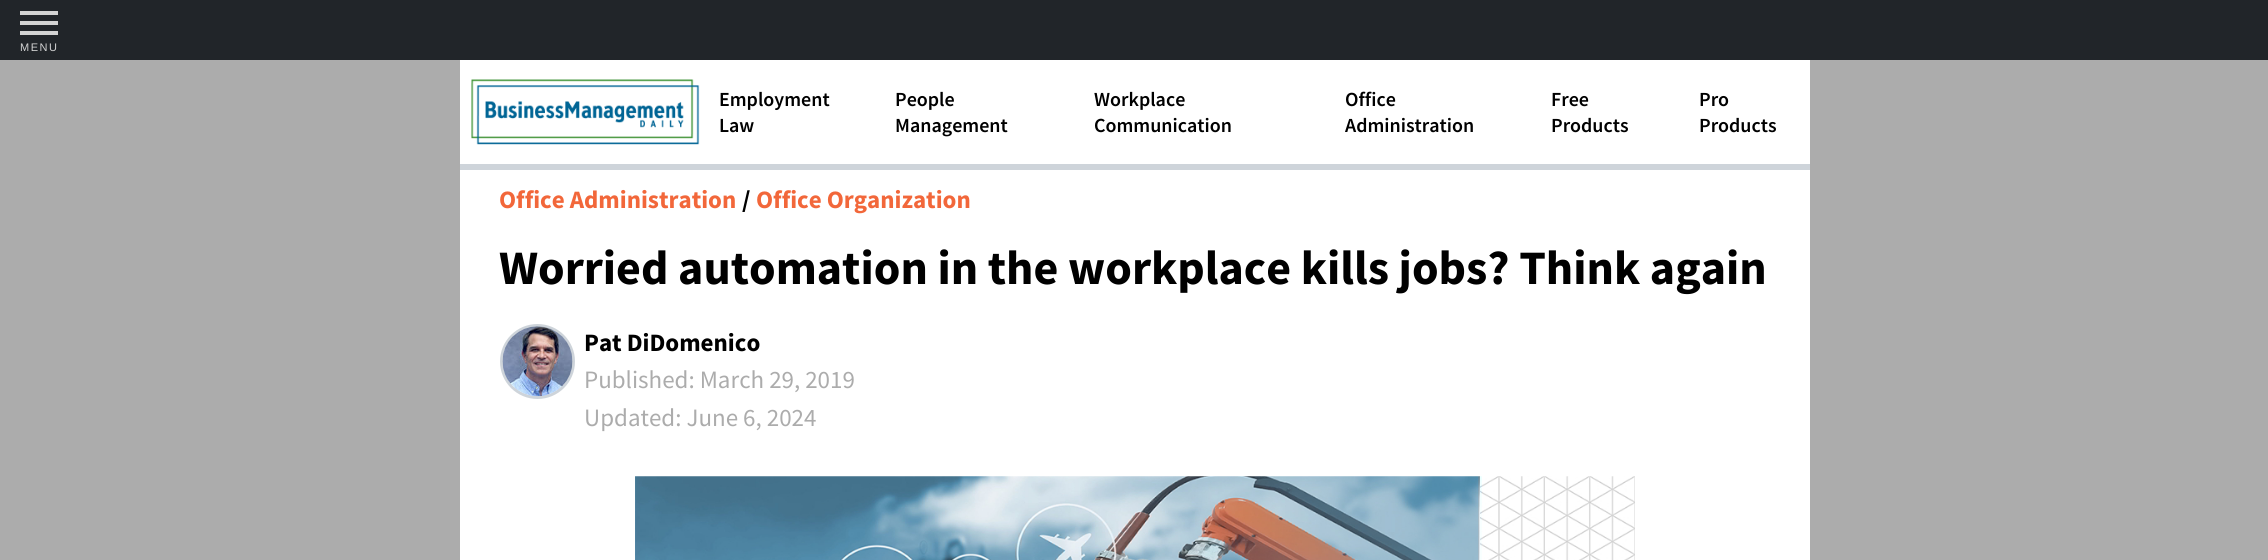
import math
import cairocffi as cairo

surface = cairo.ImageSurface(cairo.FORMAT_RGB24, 2268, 560)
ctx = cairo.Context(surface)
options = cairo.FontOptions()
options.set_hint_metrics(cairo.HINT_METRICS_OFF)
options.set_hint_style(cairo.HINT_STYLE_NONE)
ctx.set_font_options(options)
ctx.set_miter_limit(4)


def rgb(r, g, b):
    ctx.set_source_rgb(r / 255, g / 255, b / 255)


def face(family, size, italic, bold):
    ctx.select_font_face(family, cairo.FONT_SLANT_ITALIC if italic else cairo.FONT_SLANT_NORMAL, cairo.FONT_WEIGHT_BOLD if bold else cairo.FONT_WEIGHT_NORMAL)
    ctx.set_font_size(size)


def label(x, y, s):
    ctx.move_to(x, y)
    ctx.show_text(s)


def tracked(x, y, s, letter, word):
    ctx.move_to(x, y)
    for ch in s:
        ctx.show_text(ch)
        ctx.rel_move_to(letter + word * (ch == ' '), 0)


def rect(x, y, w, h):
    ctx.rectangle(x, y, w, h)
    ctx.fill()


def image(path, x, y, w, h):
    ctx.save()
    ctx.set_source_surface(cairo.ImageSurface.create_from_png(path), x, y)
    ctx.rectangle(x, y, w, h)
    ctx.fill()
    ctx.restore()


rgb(172, 172, 172)
ctx.paint()
rgb(33, 37, 41)
rect(0, 0, 2268, 60)
rgb(211, 211, 211)
rect(20, 21, 38, 4)
rect(20, 11, 38, 4)
rect(20, 31, 38, 4)
face('Liberation Sans', 11, 0, 0)
tracked(20, 51, 'MENU', 1.5, 0)
rgb(255, 255, 255)
rect(460, 60, 1350, 500)
rgb(206, 212, 218)
rect(460, 164, 1350, 6)
image('image0.png', 471, 79, 229, 66)
face('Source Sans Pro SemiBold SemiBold', 20, 0, 0)
rgb(0, 0, 0)
label(719, 106, 'Employment')
label(719, 132, 'Law')
label(895, 106, 'People')
label(895, 132, 'Management')
label(1094, 106, 'Workplace')
label(1094, 132, 'Communication')
label(1345, 106, 'Office')
label(1345, 132, 'Administration')
label(1551, 106, 'Free')
label(1551, 132, 'Products')
label(1699, 106, 'Pro')
label(1699, 132, 'Products')
face('Source Sans Pro', 25, 0, 1)
rgb(242, 103, 58)
label(499, 208, 'Office Administration')
rgb(0, 0, 0)
label(742, 208, '/')
rgb(242, 103, 58)
label(756, 208, 'Office Organization')
face('Source Sans Pro', 48, 0, 1)
rgb(0, 0, 0)
label(499, 284, 'Worried automation in the workplace kills jobs? Think again')
ctx.new_path()
ctx.arc(537.5, 361.5, 36, 0, 2 * math.pi)
rgb(206, 212, 218)
ctx.set_line_width(3)
ctx.stroke()
image('image1.png', 502, 326, 71, 71)
face('Source Sans Pro', 25, 0, 1)
rgb(0, 0, 0)
label(584, 351, 'Pat DiDomenico')
face('Source Sans Pro', 25, 0, 0)
rgb(172, 172, 172)
label(584, 388, 'Published: March 29, 2019')
label(584, 426, 'Updated: June 6, 2024')
image('image2.png', 635, 476, 1000, 84)
surface.write_to_png('render.png')
